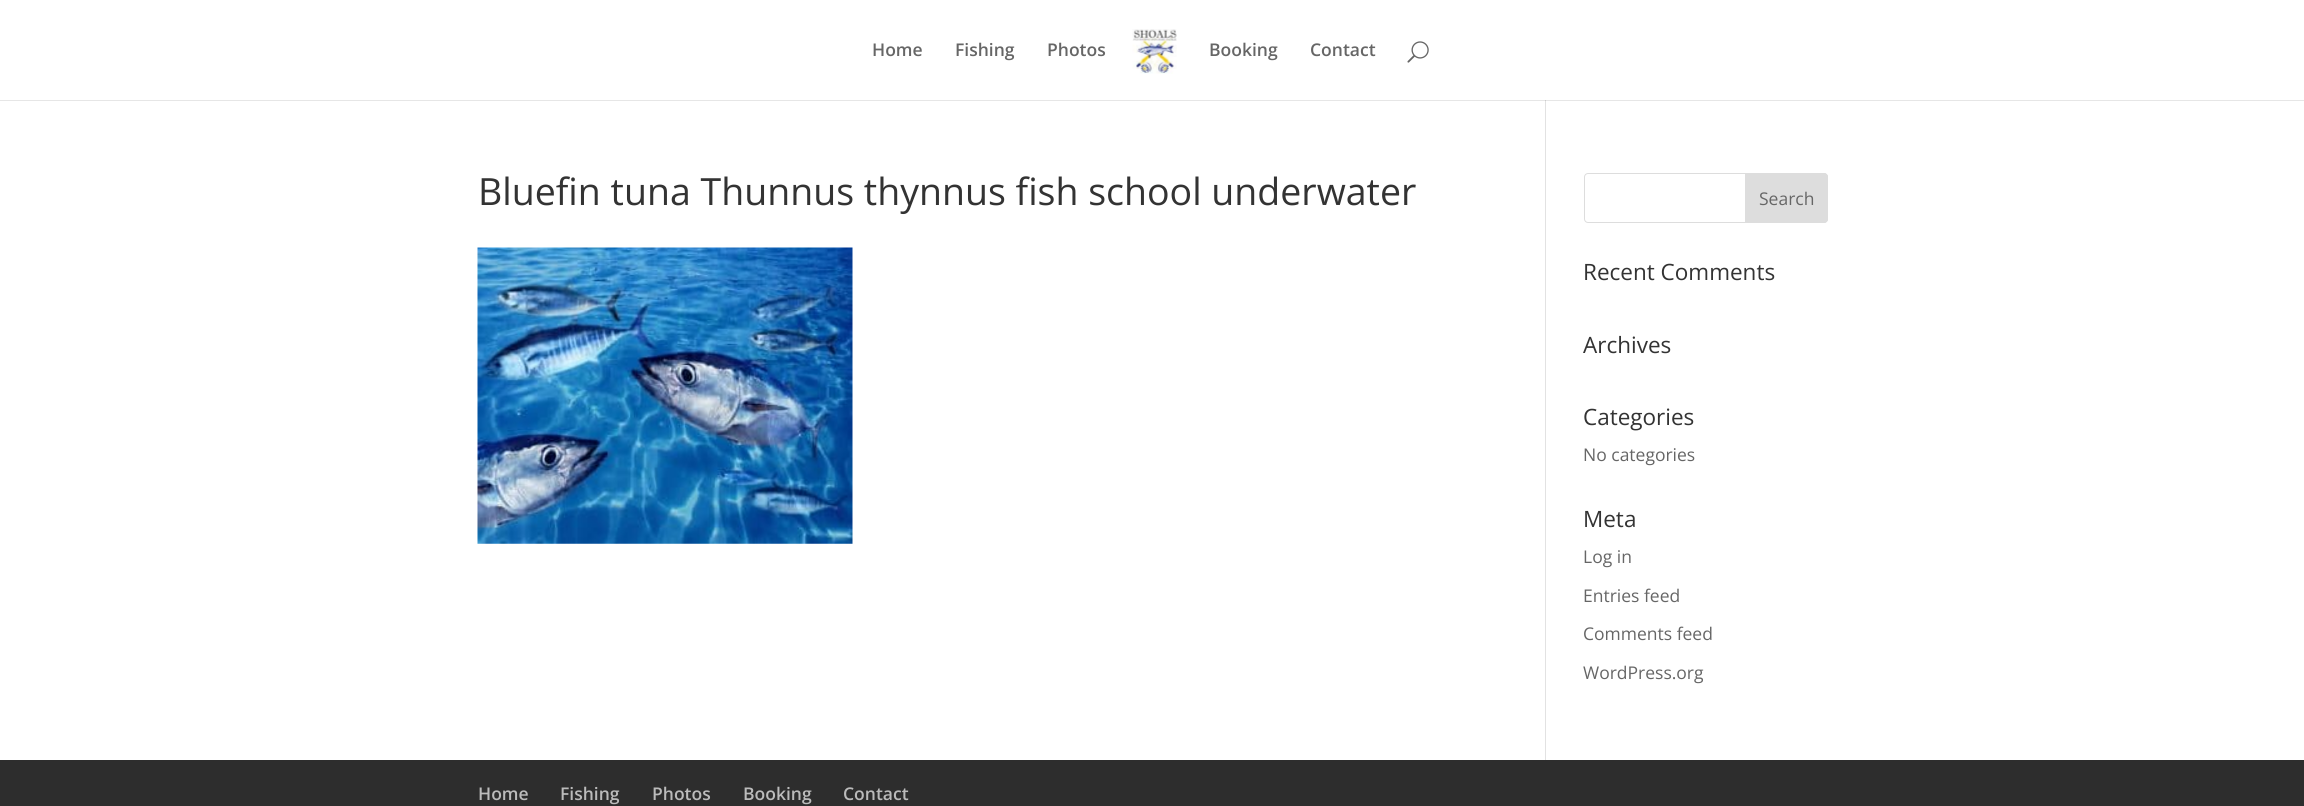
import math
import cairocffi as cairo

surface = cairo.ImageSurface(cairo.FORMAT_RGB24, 2304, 806)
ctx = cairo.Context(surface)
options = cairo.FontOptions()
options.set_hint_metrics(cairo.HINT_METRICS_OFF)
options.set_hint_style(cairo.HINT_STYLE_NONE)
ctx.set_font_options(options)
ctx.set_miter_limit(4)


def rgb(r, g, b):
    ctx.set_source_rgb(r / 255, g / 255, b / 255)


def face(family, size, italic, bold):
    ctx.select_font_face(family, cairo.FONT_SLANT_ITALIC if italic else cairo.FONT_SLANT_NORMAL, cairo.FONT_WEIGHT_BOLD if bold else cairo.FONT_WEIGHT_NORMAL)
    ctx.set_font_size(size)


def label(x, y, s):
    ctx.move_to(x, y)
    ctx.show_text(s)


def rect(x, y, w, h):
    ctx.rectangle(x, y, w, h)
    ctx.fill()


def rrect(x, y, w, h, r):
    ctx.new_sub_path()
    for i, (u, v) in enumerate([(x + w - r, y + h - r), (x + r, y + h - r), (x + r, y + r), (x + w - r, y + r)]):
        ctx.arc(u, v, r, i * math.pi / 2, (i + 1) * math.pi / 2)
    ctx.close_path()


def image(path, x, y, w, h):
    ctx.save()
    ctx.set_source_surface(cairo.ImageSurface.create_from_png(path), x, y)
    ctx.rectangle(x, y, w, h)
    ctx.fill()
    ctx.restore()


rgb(255, 255, 255)
ctx.paint()
rgb(230, 230, 230)
rect(0, 100, 2304, 1)
face('Open Sans SemiBold', 17.5, 0, 0)
rgb(102, 102, 102)
label(872, 56, 'Home')
label(955, 56, 'Fishing')
label(1047, 56, 'Photos')
image('image0.png', 1132, 29, 45, 45)
label(1209, 56, 'Booking')
label(1310, 56, 'Contact')
image('image1.png', 1407, 41, 22, 22)
rgb(226, 226, 226)
rect(1545, 100, 1, 660)
rgb(203, 203, 203)
rect(1545, 100, 1, 1)
face('Open Sans', 37.5, 0, 0)
rgb(51, 51, 51)
label(478, 205, 'Bluefin tuna Thunnus thynnus fish school underwater')
image('image2.png', 477, 247, 376, 297)
rrect(1584.5, 173.5, 243, 49, 3.5)
rgb(221, 221, 221)
ctx.set_line_width(1)
ctx.stroke()
ctx.new_path()
ctx.move_to(1745.5, 173.5)
ctx.line_to(1824, 173.5)
ctx.curve_to(1826, 173.5, 1827.5, 175, 1827.5, 177)
ctx.line_to(1827.5, 219)
ctx.curve_to(1827.5, 221, 1826, 222.5, 1824, 222.5)
ctx.line_to(1745.5, 222.5)
ctx.close_path()
ctx.fill_preserve()
ctx.stroke()
face('Open Sans', 17.5, 0, 0)
rgb(102, 102, 102)
label(1759, 205, 'Search')
face('Open Sans', 22.5, 0, 0)
rgb(51, 51, 51)
label(1583, 280, 'Recent Comments')
label(1583, 353, 'Archives')
label(1583, 425, 'Categories')
face('Open Sans', 17.5, 0, 0)
rgb(102, 102, 102)
label(1583, 461, 'No categories')
face('Open Sans', 22.5, 0, 0)
rgb(51, 51, 51)
label(1583, 527, 'Meta')
face('Open Sans', 17.5, 0, 0)
rgb(102, 102, 102)
label(1583, 563, 'Log in')
label(1583, 602, 'Entries feed')
label(1583, 640, 'Comments feed')
label(1583, 679, 'WordPress.org')
rgb(45, 45, 45)
rect(0, 760, 2304, 46)
face('Open Sans SemiBold', 17.5, 0, 0)
rgb(187, 187, 187)
label(478, 800, 'Home')
label(560, 800, 'Fishing')
label(652, 800, 'Photos')
label(743, 800, 'Booking')
label(843, 800, 'Contact')
surface.write_to_png('render.png')
